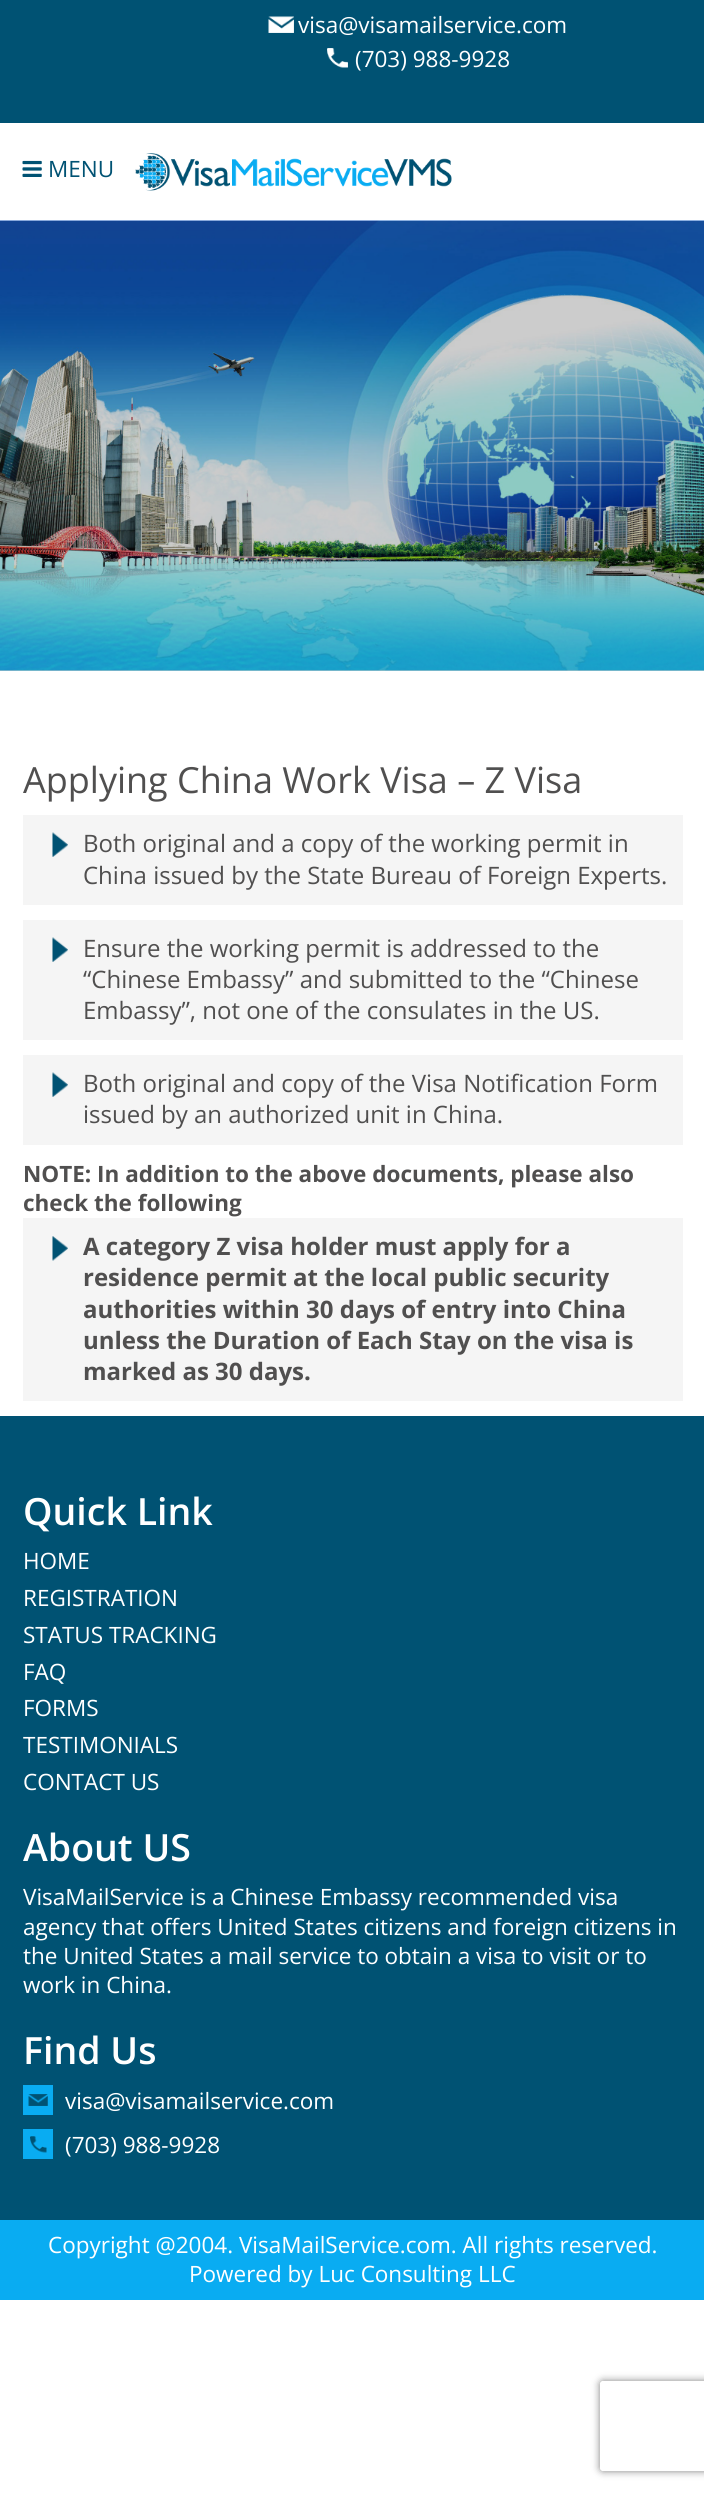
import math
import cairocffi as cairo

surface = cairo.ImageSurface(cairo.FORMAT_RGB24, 704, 2506)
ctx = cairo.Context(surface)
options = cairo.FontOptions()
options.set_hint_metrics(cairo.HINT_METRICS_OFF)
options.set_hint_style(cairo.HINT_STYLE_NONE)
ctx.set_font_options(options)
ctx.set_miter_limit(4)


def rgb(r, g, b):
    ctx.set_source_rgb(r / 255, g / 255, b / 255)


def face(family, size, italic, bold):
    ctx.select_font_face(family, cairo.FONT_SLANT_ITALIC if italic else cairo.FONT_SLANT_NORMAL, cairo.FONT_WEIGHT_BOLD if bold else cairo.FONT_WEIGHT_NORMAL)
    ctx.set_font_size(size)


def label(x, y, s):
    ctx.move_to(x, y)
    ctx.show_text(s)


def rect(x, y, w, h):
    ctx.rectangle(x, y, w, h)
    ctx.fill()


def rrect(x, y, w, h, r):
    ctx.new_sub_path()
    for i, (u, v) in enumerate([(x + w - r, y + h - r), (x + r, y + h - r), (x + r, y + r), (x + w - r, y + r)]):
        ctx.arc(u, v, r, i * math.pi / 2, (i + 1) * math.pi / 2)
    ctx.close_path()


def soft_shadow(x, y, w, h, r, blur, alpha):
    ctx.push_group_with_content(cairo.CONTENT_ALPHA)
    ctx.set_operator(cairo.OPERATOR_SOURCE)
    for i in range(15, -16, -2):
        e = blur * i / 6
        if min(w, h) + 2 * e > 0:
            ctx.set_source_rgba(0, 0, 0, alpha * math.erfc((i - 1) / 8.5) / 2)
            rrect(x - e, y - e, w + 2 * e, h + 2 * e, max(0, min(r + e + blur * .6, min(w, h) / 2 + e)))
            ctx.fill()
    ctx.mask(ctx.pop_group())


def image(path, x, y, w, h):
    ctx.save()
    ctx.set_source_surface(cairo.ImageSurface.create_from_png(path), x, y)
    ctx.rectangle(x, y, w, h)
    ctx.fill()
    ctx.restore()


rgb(255, 255, 255)
ctx.paint()
rgb(204, 204, 204)
rect(0, 670, 704, 1)
rgb(0, 82, 115)
rect(0, 0, 704, 123)
image('image0.png', 268, 16, 26, 17)
face('Open Sans', 22.5, 0, 0)
rgb(255, 255, 255)
label(298, 33, 'visa@visamailservice.com')
image('image1.png', 327, 48, 21, 20)
label(355, 67, '(703) 988-9928')
image('image2.png', 22, 160, 20, 17)
rgb(0, 82, 115)
label(48, 177, 'MENU')
image('image3.png', 135, 153, 317, 38)
image('image4.png', 0, 220, 704, 451)
face('Open Sans', 36, 0, 0)
rgb(80, 79, 79)
label(23, 793, 'Applying China Work Visa – Z Visa')
rgb(245, 245, 245)
rect(23, 815, 660, 90)
image('image5.png', 52, 832, 16, 25)
face('Open Sans', 24, 0, 0)
rgb(80, 79, 79)
label(83, 852, 'Both original and a copy of the working permit in')
label(83, 884, 'China issued by the State Bureau of Foreign Experts.')
rgb(245, 245, 245)
rect(23, 920, 660, 120)
image('image5.png', 52, 937, 16, 25)
rgb(80, 79, 79)
label(83, 957, 'Ensure the working permit is addressed to the')
label(83, 988, '“Chinese Embassy” and submitted to the “Chinese')
label(83, 1019, 'Embassy”, not one of the consulates in the US.')
rgb(245, 245, 245)
rect(23, 1055, 660, 90)
image('image6.png', 52, 1072, 16, 25)
rgb(80, 79, 79)
label(83, 1092, 'Both original and copy of the Visa Notification Form')
label(83, 1123, 'issued by an authorized unit in China.')
face('Open Sans', 22.5, 0, 1)
label(23, 1182, 'NOTE: In addition to the above documents, please also')
label(23, 1211, 'check the following')
rgb(245, 245, 245)
rect(23, 1218, 660, 183)
image('image7.png', 52, 1236, 16, 25)
face('Open Sans', 24, 0, 1)
rgb(80, 79, 79)
label(83, 1255, 'A category Z visa holder must apply for a')
label(83, 1286, 'residence permit at the local public security')
label(83, 1318, 'authorities within 30 days of entry into China')
label(83, 1349, 'unless the Duration of Each Stay on the visa is')
label(83, 1380, 'marked as 30 days.')
rgb(0, 82, 115)
rect(0, 1416, 704, 804)
face('Open Sans SemiBold', 37.5, 0, 0)
rgb(255, 255, 255)
label(23, 1525, 'Quick Link')
face('Open Sans', 22.5, 0, 0)
label(23, 1569, 'HOME')
label(23, 1606, 'REGISTRATION')
label(23, 1643, 'STATUS TRACKING')
label(23, 1680, 'FAQ')
label(23, 1716, 'FORMS')
label(23, 1753, 'TESTIMONIALS')
label(23, 1790, 'CONTACT US')
face('Open Sans SemiBold', 37.5, 0, 0)
label(23, 1861, 'About US')
face('Open Sans', 22.5, 0, 0)
label(23, 1905, 'VisaMailService is a Chinese Embassy recommended visa')
label(23, 1935, 'agency that offers United States citizens and foreign citizens in')
label(23, 1964, 'the United States a mail service to obtain a visa to visit or to')
label(23, 1993, 'work in China.')
face('Open Sans SemiBold', 37.5, 0, 0)
label(23, 2064, 'Find Us')
rgb(9, 172, 242)
rect(23, 2085, 30, 30)
image('image8.png', 28, 2094, 20, 12)
face('Open Sans', 22.5, 0, 0)
rgb(255, 255, 255)
label(65, 2109, 'visa@visamailservice.com')
rgb(9, 172, 242)
rect(23, 2129, 30, 30)
image('image9.png', 30, 2136, 17, 17)
rgb(255, 255, 255)
label(65, 2153, '(703) 988-9928')
rgb(9, 172, 242)
rect(0, 2220, 704, 80)
rgb(255, 255, 255)
label(48, 2253, 'Copyright @2004. VisaMailService.com. All rights reserved.')
label(189, 2282, 'Powered by Luc Consulting LLC')
ctx.save()
ctx.set_fill_rule(cairo.FILL_RULE_EVEN_ODD)
ctx.new_path()
ctx.move_to(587, 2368)
ctx.line_to(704, 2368)
ctx.line_to(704, 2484)
ctx.line_to(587, 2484)
ctx.close_path()
ctx.move_to(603, 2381)
ctx.line_to(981, 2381)
ctx.curve_to(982.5, 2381, 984, 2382.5, 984, 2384)
ctx.line_to(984, 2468)
ctx.curve_to(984, 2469.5, 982.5, 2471, 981, 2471)
ctx.line_to(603, 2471)
ctx.curve_to(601.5, 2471, 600, 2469.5, 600, 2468)
ctx.line_to(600, 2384)
ctx.curve_to(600, 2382.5, 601.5, 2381, 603, 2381)
ctx.close_path()
ctx.clip()
rgb(128, 128, 128)
soft_shadow(600, 2381, 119, 90, 3, 4, 1)
ctx.restore()
surface.write_to_png('render.png')
